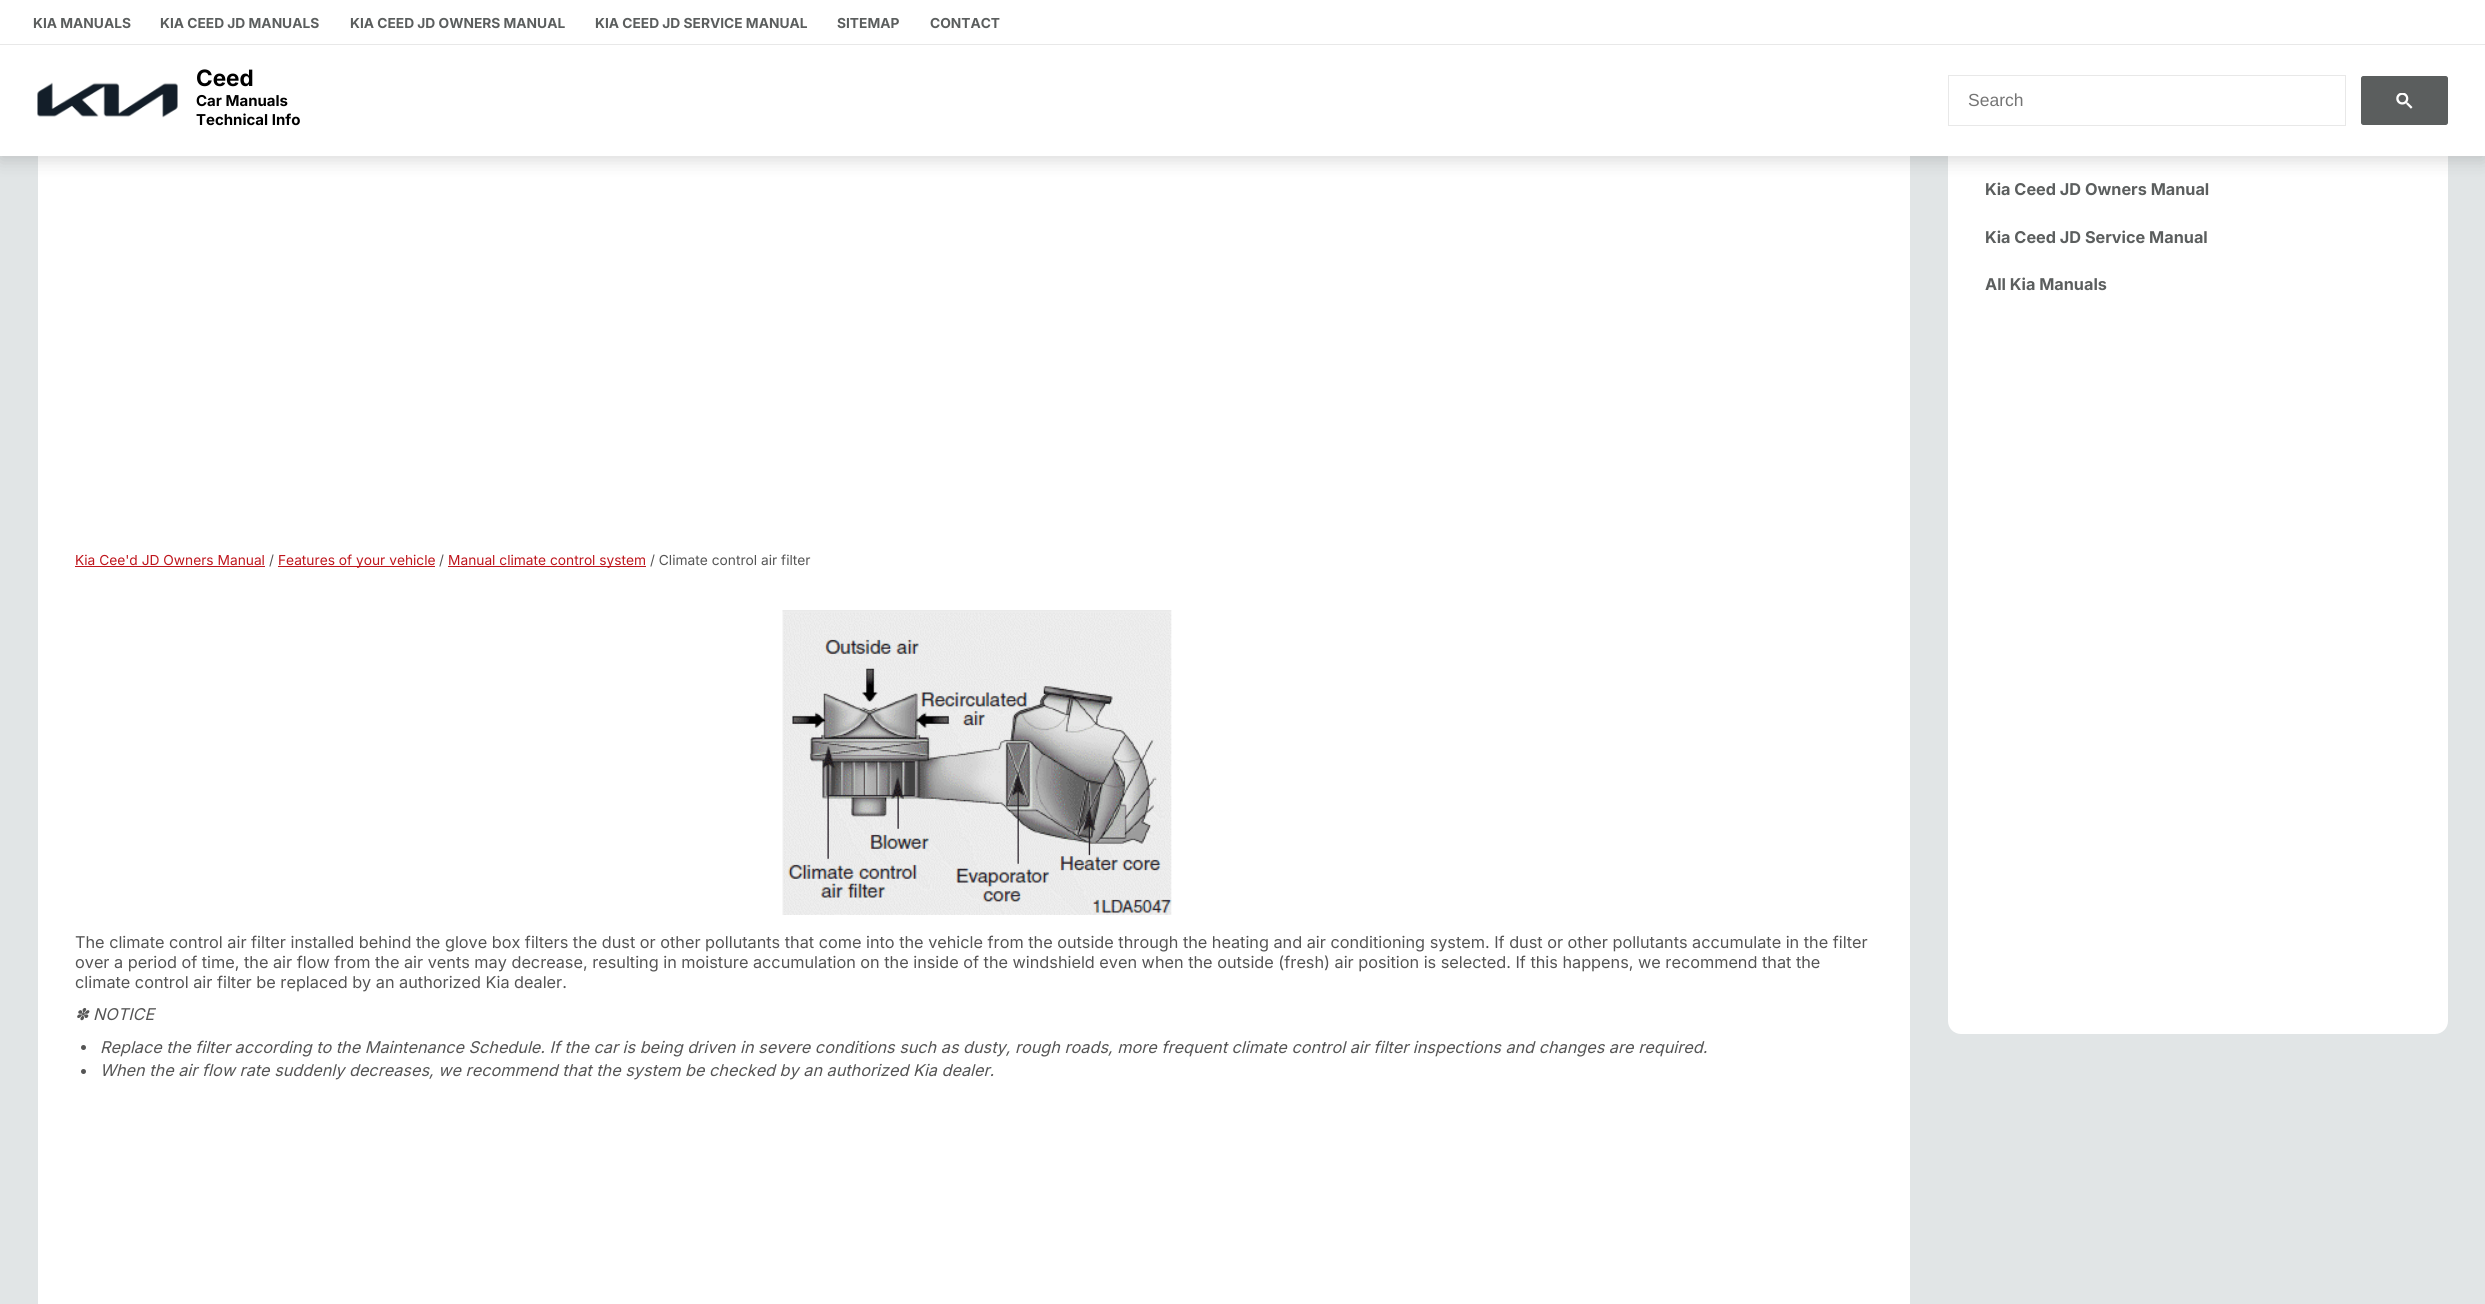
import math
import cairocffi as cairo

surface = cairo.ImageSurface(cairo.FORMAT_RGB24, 2485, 1304)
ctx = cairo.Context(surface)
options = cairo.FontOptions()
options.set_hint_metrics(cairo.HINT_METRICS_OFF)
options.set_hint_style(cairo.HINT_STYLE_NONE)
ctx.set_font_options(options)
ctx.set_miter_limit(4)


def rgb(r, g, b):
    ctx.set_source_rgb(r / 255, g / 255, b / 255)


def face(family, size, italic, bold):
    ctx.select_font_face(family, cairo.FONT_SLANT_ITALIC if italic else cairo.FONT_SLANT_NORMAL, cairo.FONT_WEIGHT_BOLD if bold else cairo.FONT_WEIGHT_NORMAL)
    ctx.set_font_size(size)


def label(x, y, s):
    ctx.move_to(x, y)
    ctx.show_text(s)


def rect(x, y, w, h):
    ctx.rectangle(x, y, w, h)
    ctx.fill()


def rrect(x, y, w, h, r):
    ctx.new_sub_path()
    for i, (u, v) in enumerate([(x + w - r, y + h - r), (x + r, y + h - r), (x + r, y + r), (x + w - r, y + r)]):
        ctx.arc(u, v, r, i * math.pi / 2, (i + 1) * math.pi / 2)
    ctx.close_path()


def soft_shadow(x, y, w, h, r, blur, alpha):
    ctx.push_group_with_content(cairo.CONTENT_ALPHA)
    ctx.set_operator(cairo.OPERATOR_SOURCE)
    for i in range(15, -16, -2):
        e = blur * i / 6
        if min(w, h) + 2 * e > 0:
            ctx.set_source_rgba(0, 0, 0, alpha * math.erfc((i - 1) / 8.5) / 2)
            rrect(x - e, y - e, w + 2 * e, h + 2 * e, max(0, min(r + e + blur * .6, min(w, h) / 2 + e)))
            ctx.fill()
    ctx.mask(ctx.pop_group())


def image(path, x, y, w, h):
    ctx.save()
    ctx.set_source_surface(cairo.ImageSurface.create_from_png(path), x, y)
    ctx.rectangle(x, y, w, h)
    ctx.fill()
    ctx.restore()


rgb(225, 229, 230)
ctx.paint()
rgb(255, 255, 255)
rrect(1948, 94, 500, 940, 13)
ctx.fill()
rect(38, 156, 1872, 1148)
rgb(0, 0, 0)
soft_shadow(0, 4, 2485, 156, 0, 9.5, 0.15)
rgb(255, 255, 255)
rect(0, 0, 2485, 156)
rgb(232, 232, 232)
rect(0, 44, 2485, 1)
face('Inter', 13.75, 0, 1)
rgb(91, 94, 94)
label(33, 28, 'KIA MANUALS')
label(160, 28, 'KIA CEED JD MANUALS')
label(350, 28, 'KIA CEED JD OWNERS MANUAL')
label(595, 28, 'KIA CEED JD SERVICE MANUAL')
label(837, 28, 'SITEMAP')
label(930, 28, 'CONTACT')
face('Inter', 22.5, 0, 1)
rgb(0, 0, 0)
label(196, 86, 'Ceed')
image('image0.png', 37, 82, 141, 36)
face('Inter', 15, 0, 1)
label(196, 106, 'Car Manuals')
label(196, 125, 'Technical Info')
ctx.rectangle(1948.5, 75.5, 397, 50)
rgb(232, 232, 232)
ctx.set_line_width(1)
ctx.stroke()
face('Liberation Sans', 17.5, 0, 0)
rgb(117, 117, 117)
label(1968, 106, 'Search')
rgb(91, 94, 94)
rrect(2361.5, 76.5, 86, 48, 2)
ctx.fill_preserve()
ctx.stroke()
image('image1.png', 2396, 93, 17, 16)
face('Inter', 16.25, 0, 1)
label(1985, 195, 'Kia Ceed JD Owners Manual')
label(1985, 243, 'Kia Ceed JD Service Manual')
label(1985, 290, 'All Kia Manuals')
face('Inter', 13.75, 0, 0)
rgb(191, 21, 28)
label(75, 565, 'Kia Cee\'d JD Owners Manual')
rect(75, 566, 190, 1)
rgb(85, 85, 85)
label(269, 565, '/')
rgb(191, 21, 28)
rect(278, 566, 157, 1)
label(278, 565, 'Features of your vehicle')
rgb(85, 85, 85)
label(439, 565, '/')
rgb(191, 21, 28)
rect(448, 566, 198, 1)
label(448, 565, 'Manual climate control system')
rgb(85, 85, 85)
label(650, 565, '/ Climate control air filter')
image('image2.png', 782, 610, 390, 305)
face('Inter', 16.25, 0, 0)
label(75, 948, 'The climate control air filter installed behind the glove box filters the dust or other pollutants that come into the vehicle from the outside through the heating and air conditioning system. If dust or other pollutants accumulate in the filter')
label(75, 968, 'over a period of time, the air flow from the air vents may decrease, resulting in moisture accumulation on the inside of the windshield even when the outside (fresh) air position is selected. If this happens, we recommend that the')
label(75, 988, 'climate control air filter be replaced by an authorized Kia dealer.')
face('DejaVu Sans', 16.25, 1, 0)
label(75, 1020, '✽')
face('Inter', 16.25, 1, 0)
label(93, 1020, 'NOTICE')
ctx.new_path()
ctx.arc(83.5, 1047.5, 2.5, 0, 2 * math.pi)
ctx.fill()
label(100, 1053, 'Replace the filter according to the Maintenance Schedule. If the car is being driven in severe conditions such as dusty, rough roads, more frequent climate control air filter inspections and changes are required.')
ctx.new_path()
ctx.arc(83.5, 1071.5, 2.5, 0, 2 * math.pi)
ctx.fill()
label(100, 1076, 'When the air flow rate suddenly decreases, we recommend that the system be checked by an authorized Kia dealer.')
surface.write_to_png('render.png')
